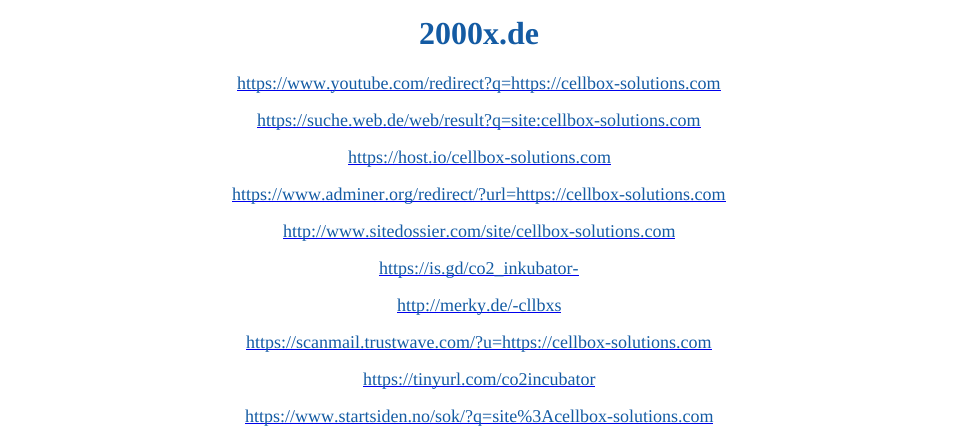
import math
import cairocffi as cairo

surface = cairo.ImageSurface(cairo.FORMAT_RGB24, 958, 426)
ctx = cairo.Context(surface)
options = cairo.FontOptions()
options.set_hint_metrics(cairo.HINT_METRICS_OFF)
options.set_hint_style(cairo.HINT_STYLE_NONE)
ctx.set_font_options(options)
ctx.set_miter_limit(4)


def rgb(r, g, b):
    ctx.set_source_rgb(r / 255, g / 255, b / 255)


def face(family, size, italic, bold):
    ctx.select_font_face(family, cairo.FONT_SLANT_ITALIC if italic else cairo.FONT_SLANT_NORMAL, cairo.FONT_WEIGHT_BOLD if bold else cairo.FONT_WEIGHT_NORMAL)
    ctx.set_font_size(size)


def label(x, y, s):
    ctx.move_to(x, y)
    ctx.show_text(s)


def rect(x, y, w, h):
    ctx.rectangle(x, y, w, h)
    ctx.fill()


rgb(255, 255, 255)
ctx.paint()
face('Liberation Serif', 32, 0, 1)
rgb(20, 91, 163)
label(419, 44, '2000x.de')
rgb(0, 0, 238)
rect(237, 90, 484, 1)
face('Liberation Serif', 18, 0, 0)
rgb(20, 91, 163)
label(237, 89, 'https://www.youtube.com/redirect?q=https://cellbox-solutions.com')
rgb(0, 0, 238)
rect(257, 127, 444, 1)
rgb(20, 91, 163)
label(257, 126, 'https://suche.web.de/web/result?q=site:cellbox-solutions.com')
rgb(0, 0, 238)
rect(348, 164, 263, 1)
rgb(20, 91, 163)
label(348, 163, 'https://host.io/cellbox-solutions.com')
rgb(0, 0, 238)
rect(232, 201, 494, 1)
rgb(20, 91, 163)
label(232, 200, 'https://www.adminer.org/redirect/?url=https://cellbox-solutions.com')
rgb(0, 0, 238)
rect(283, 238, 392, 1)
rgb(20, 91, 163)
label(283, 237, 'http://www.sitedossier.com/site/cellbox-solutions.com')
rgb(0, 0, 238)
rect(379, 275, 200, 1)
rgb(20, 91, 163)
label(379, 274, 'https://is.gd/co2_inkubator-')
rgb(0, 0, 238)
rect(397, 312, 164, 1)
rgb(20, 91, 163)
label(397, 311, 'http://merky.de/-cllbxs')
rgb(0, 0, 238)
rect(246, 349, 466, 1)
rgb(20, 91, 163)
label(246, 348, 'https://scanmail.trustwave.com/?u=https://cellbox-solutions.com')
rgb(0, 0, 238)
rect(363, 386, 232, 1)
rgb(20, 91, 163)
label(363, 385, 'https://tinyurl.com/co2incubator')
rgb(0, 0, 238)
rect(245, 423, 468, 1)
rgb(20, 91, 163)
label(245, 422, 'https://www.startsiden.no/sok/?q=site%3Acellbox-solutions.com')
surface.write_to_png('render.png')
